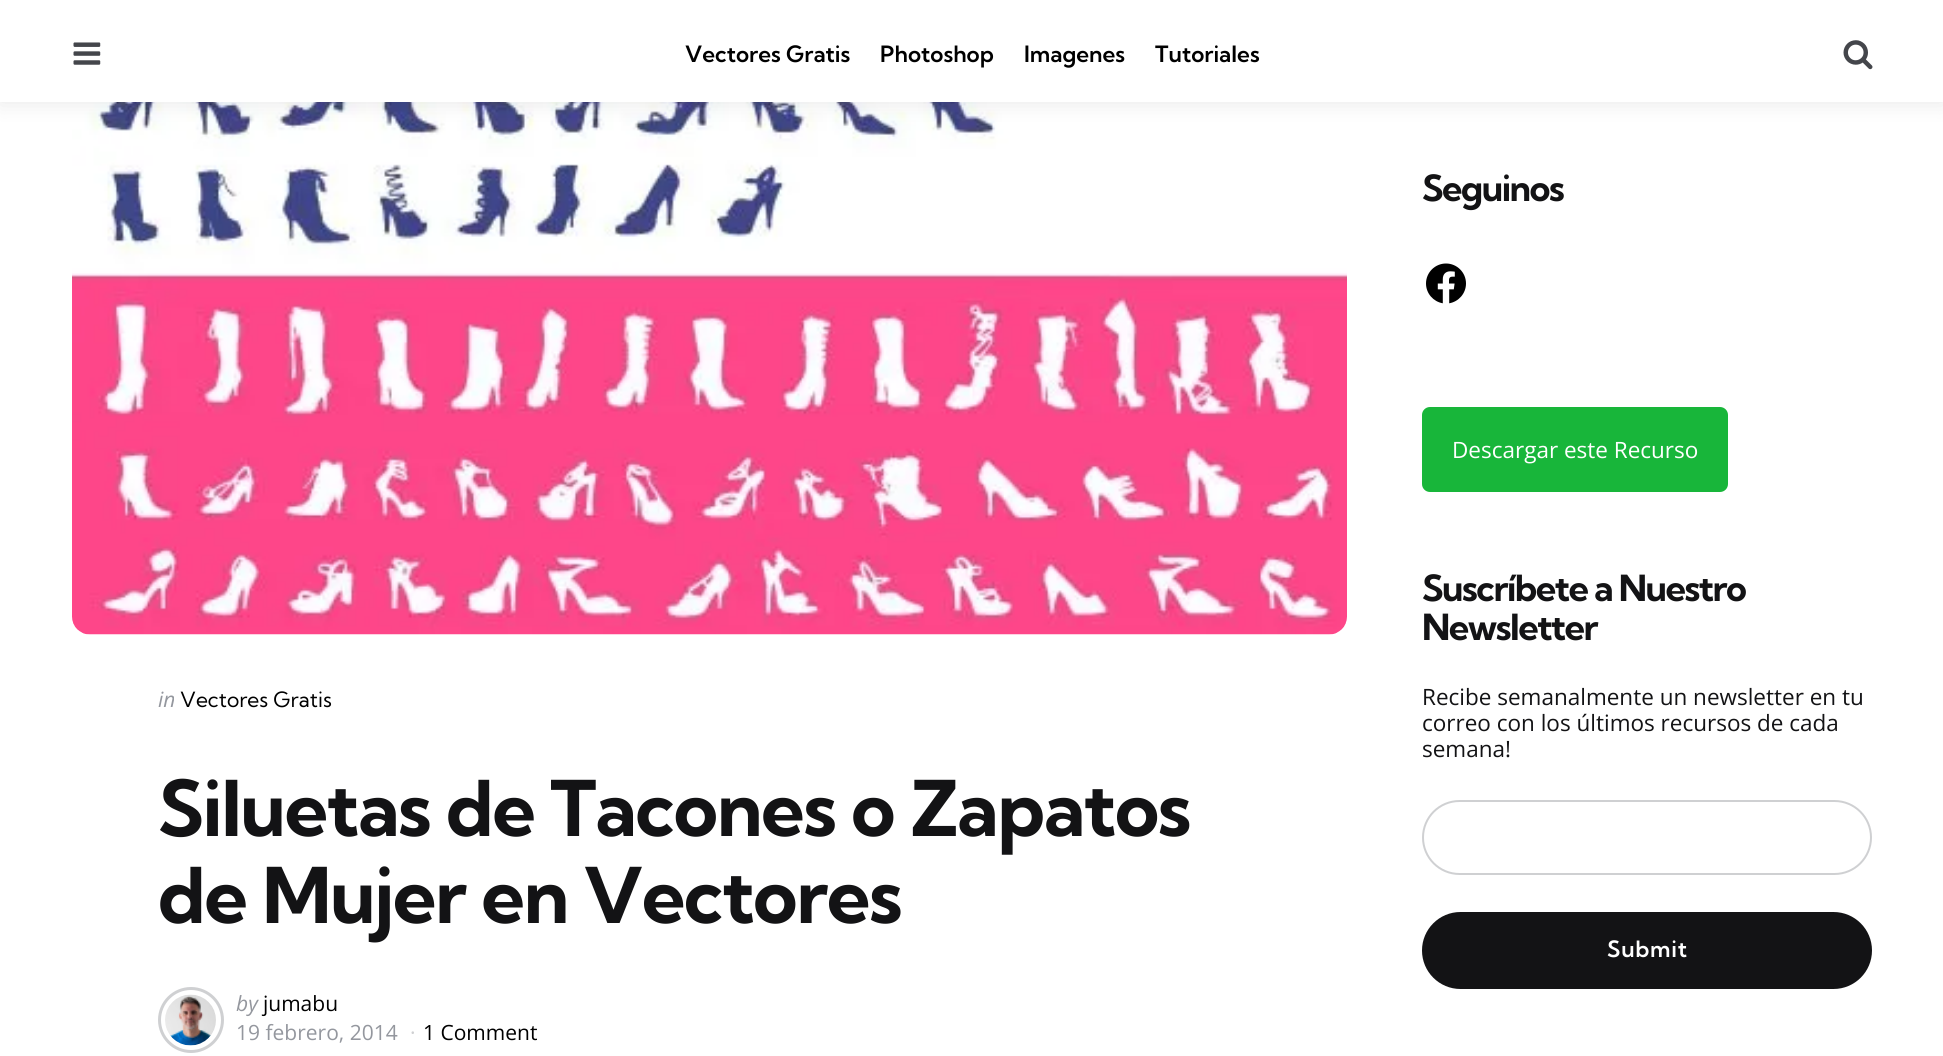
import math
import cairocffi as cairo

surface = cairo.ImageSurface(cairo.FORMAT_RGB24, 1943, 1056)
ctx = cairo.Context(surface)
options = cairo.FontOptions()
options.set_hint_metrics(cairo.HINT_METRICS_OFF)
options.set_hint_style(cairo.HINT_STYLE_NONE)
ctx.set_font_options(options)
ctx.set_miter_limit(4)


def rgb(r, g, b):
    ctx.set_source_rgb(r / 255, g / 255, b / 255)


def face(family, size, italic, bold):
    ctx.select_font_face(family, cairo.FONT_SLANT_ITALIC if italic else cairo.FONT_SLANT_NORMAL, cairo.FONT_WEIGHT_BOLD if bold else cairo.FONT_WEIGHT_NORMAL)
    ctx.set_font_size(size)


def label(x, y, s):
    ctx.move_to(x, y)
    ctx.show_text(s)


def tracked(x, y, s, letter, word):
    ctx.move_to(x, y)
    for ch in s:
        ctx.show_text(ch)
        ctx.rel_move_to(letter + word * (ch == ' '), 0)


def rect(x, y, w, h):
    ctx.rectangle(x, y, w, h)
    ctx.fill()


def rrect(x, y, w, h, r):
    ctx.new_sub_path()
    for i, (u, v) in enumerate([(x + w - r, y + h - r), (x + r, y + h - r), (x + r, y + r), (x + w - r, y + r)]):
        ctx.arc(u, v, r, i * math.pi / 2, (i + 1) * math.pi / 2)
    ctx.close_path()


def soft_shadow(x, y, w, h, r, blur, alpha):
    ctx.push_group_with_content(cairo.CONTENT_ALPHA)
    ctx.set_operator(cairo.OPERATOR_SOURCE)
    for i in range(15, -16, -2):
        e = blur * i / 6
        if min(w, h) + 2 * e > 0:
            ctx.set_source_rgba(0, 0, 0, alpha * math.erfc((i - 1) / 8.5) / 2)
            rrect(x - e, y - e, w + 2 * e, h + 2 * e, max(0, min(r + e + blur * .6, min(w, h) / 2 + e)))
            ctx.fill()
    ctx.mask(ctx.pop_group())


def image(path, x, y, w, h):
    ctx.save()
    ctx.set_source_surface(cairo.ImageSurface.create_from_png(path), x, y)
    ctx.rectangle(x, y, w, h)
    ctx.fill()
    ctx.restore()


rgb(255, 255, 255)
ctx.paint()
image('image2.png', 72, 102, 1275, 533)
rgb(0, 0, 0)
soft_shadow(0, 0, 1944, 102, 0, 11, 0.1)
rgb(255, 255, 255)
rect(0, 0, 1943, 102)
image('image0.png', 73, 42, 28, 23)
face('Kumbh Sans SemiBold', 22.5, 0, 0)
rgb(0, 0, 0)
label(685, 62, 'Vectores Gratis')
label(880, 62, 'Photoshop')
label(1024, 62, 'Imagenes')
label(1155, 62, 'Tutoriales')
image('image1.png', 1843, 40, 30, 30)
face('Open Sans', 21, 1, 0)
rgb(148, 151, 158)
label(158, 707, 'in')
face('Kumbh Sans', 21, 0, 0)
rgb(0, 0, 0)
label(180, 707, 'Vectores Gratis')
face('Kumbh Sans', 76.75, 0, 1)
rgb(19, 19, 21)
tracked(158, 836, 'Siluetas de Tacones o Zapatos', -1.5, 0)
tracked(158, 923, 'de Mujer en Vectores', -1.5, 0)
ctx.new_path()
ctx.arc(191, 1020, 31.5, 0, 2 * math.pi)
rgb(207, 208, 210)
ctx.set_line_width(3)
ctx.stroke()
image('image3.png', 165, 994, 51, 52)
face('Open Sans', 21, 1, 0)
rgb(148, 151, 158)
label(236, 1011, 'by')
face('Open Sans', 21, 0, 0)
rgb(0, 0, 0)
label(263, 1011, 'jumabu')
rgb(148, 151, 158)
label(236, 1040, '19 febrero, 2014')
rgb(207, 208, 210)
label(410, 1040, '·')
rgb(0, 0, 0)
label(423, 1040, '1 Comment')
face('Kumbh Sans', 36, 0, 1)
rgb(19, 19, 21)
tracked(1422, 201, 'Seguinos', -1.5, 0)
image('image4.png', 1426, 263, 40, 41)
rgb(24, 182, 58)
rrect(1422, 407, 306, 85, 8)
ctx.fill()
face('Open Sans', 22.5, 0, 0)
rgb(255, 255, 255)
label(1452, 458, 'Descargar este Recurso')
face('Kumbh Sans', 36, 0, 1)
rgb(19, 19, 21)
tracked(1422, 601, 'Suscríbete a Nuestro', -1.5, 0)
tracked(1422, 640, 'Newsletter', -1.5, 0)
face('Open Sans', 22.5, 0, 0)
label(1422, 705, 'Recibe semanalmente un newsletter en tu')
label(1422, 731, 'correo con los últimos recursos de cada')
label(1422, 757, 'semana!')
rrect(1423, 801, 448, 73, 36.5)
rgb(207, 208, 210)
ctx.set_line_width(2)
ctx.stroke()
rgb(19, 19, 21)
rrect(1422, 912, 450, 77, 38.5)
ctx.fill()
face('Kumbh Sans SemiBold', 22.5, 0, 0)
rgb(255, 255, 255)
tracked(1607, 957, 'Submit', 0.75, 0)
surface.write_to_png('render.png')
